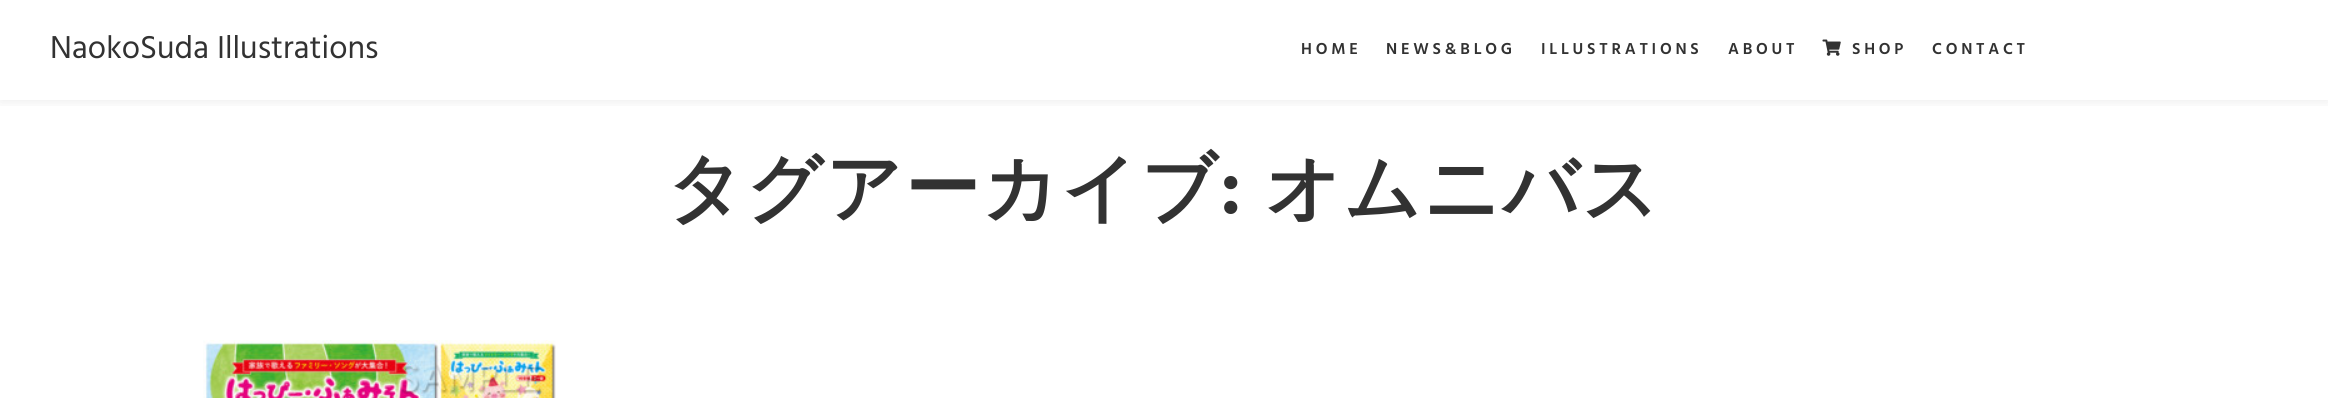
import math
import cairocffi as cairo

surface = cairo.ImageSurface(cairo.FORMAT_RGB24, 2328, 398)
ctx = cairo.Context(surface)
options = cairo.FontOptions()
options.set_hint_metrics(cairo.HINT_METRICS_OFF)
options.set_hint_style(cairo.HINT_STYLE_NONE)
ctx.set_font_options(options)
ctx.set_miter_limit(4)


def rgb(r, g, b):
    ctx.set_source_rgb(r / 255, g / 255, b / 255)


def face(family, size, italic, bold):
    ctx.select_font_face(family, cairo.FONT_SLANT_ITALIC if italic else cairo.FONT_SLANT_NORMAL, cairo.FONT_WEIGHT_BOLD if bold else cairo.FONT_WEIGHT_NORMAL)
    ctx.set_font_size(size)


def label(x, y, s):
    ctx.move_to(x, y)
    ctx.show_text(s)


def tracked(x, y, s, letter, word):
    ctx.move_to(x, y)
    for ch in s:
        ctx.show_text(ch)
        ctx.rel_move_to(letter + word * (ch == ' '), 0)


def rrect(x, y, w, h, r):
    ctx.new_sub_path()
    for i, (u, v) in enumerate([(x + w - r, y + h - r), (x + r, y + h - r), (x + r, y + r), (x + w - r, y + r)]):
        ctx.arc(u, v, r, i * math.pi / 2, (i + 1) * math.pi / 2)
    ctx.close_path()


def soft_shadow(x, y, w, h, r, blur, alpha):
    ctx.push_group_with_content(cairo.CONTENT_ALPHA)
    ctx.set_operator(cairo.OPERATOR_SOURCE)
    for i in range(15, -16, -2):
        e = blur * i / 6
        if min(w, h) + 2 * e > 0:
            ctx.set_source_rgba(0, 0, 0, alpha * math.erfc((i - 1) / 8.5) / 2)
            rrect(x - e, y - e, w + 2 * e, h + 2 * e, max(0, min(r + e + blur * .6, min(w, h) / 2 + e)))
            ctx.fill()
    ctx.mask(ctx.pop_group())


def image(path, x, y, w, h):
    ctx.save()
    ctx.set_source_surface(cairo.ImageSurface.create_from_png(path), x, y)
    ctx.rectangle(x, y, w, h)
    ctx.fill()
    ctx.restore()


rgb(255, 255, 255)
ctx.paint()
ctx.save()
ctx.rectangle(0, 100, 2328, 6)
ctx.clip()
rgb(0, 0, 0)
soft_shadow(0, 0, 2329, 100, 0, 7.5, 0.09)
ctx.restore()
face('Hind', 32.5, 0, 0)
rgb(50, 50, 50)
label(50, 58, 'NaokoSuda Illustrations')
face('Hind SemiBold', 16.25, 0, 0)
tracked(1301, 54, 'HOME', 3.75, 0)
tracked(1386, 54, 'NEWS&BLOG', 3.75, 0)
tracked(1541, 54, 'ILLUSTRATIONS', 3.75, 0)
tracked(1728, 54, 'ABOUT', 3.75, 0)
image('image0.png', 1822, 39, 19, 17)
tracked(1852, 54, 'SHOP', 3.75, 0)
tracked(1932, 54, 'CONTACT', 3.75, 0)
face('WenQuanYi Zen Hei', 75, 0, 1)
tracked(667, 214, 'タグアーカイブ', 2.5, 0)
face('Hind', 75, 0, 1)
tracked(1220, 214, ':', 2.5, 0)
face('WenQuanYi Zen Hei', 75, 0, 1)
tracked(1265, 214, 'オムニバス', 2.5, 0)
image('image1.png', 203, 340, 353, 58)
surface.write_to_png('render.png')
